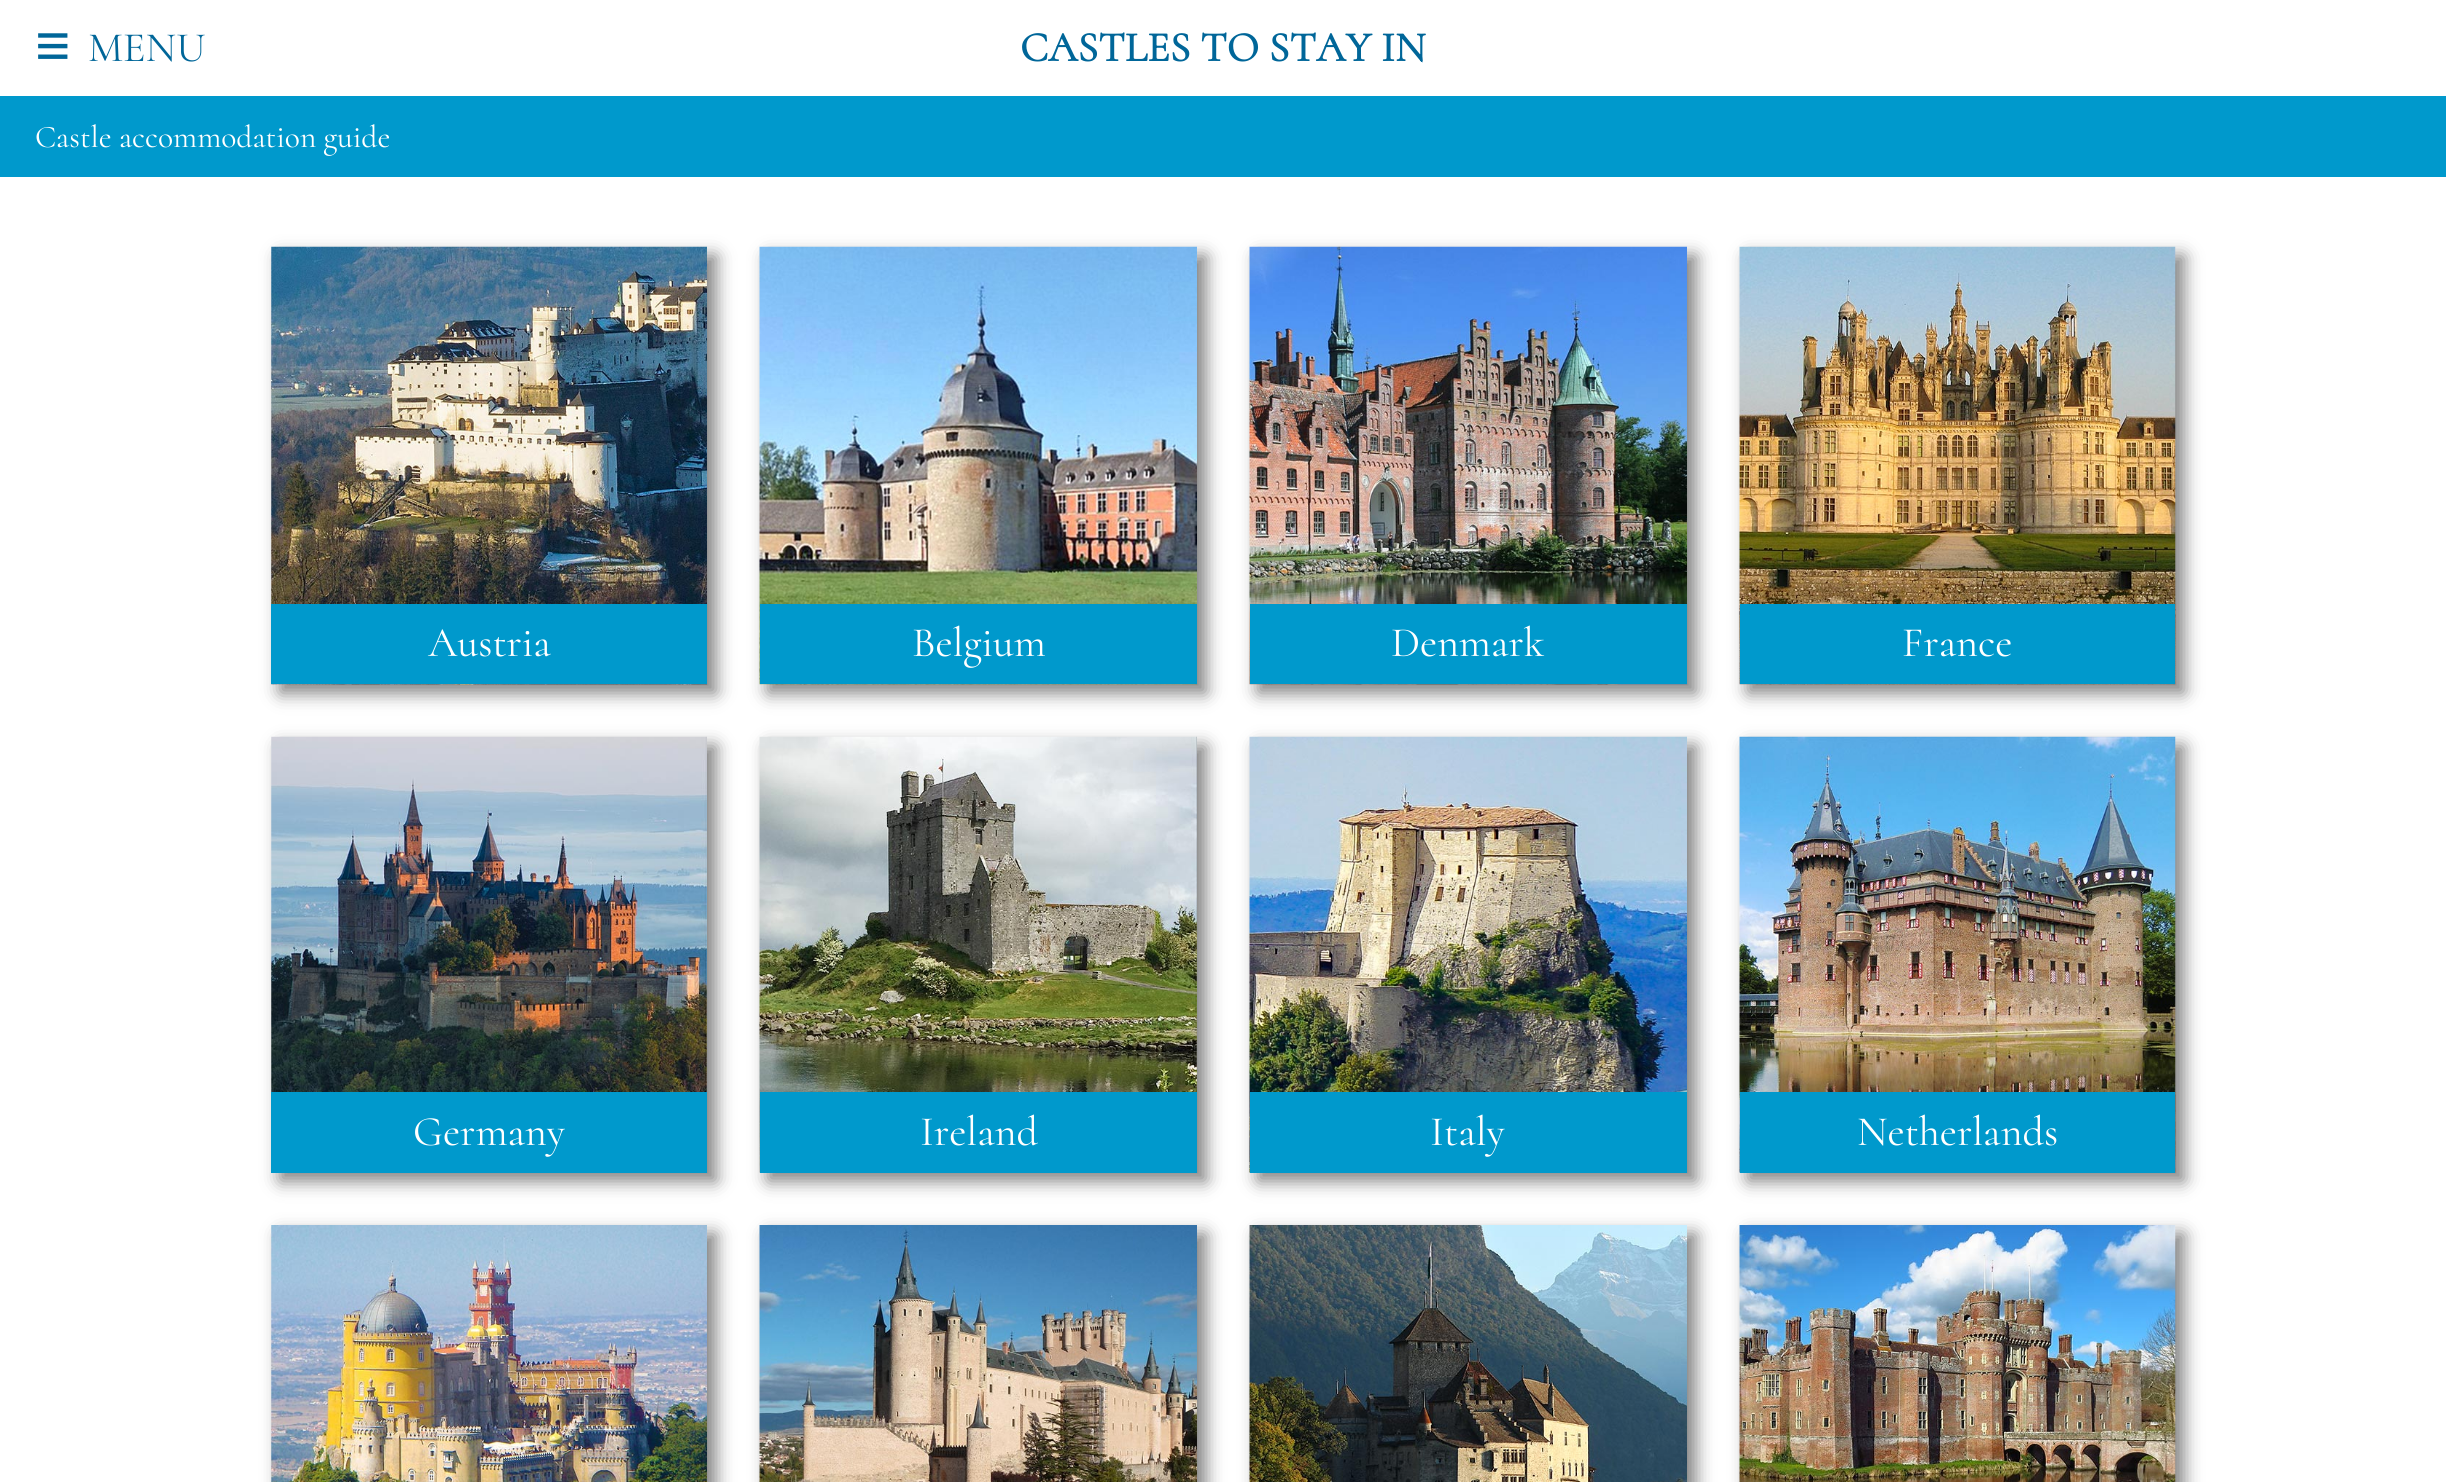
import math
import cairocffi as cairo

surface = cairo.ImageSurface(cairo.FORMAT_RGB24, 2446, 1482)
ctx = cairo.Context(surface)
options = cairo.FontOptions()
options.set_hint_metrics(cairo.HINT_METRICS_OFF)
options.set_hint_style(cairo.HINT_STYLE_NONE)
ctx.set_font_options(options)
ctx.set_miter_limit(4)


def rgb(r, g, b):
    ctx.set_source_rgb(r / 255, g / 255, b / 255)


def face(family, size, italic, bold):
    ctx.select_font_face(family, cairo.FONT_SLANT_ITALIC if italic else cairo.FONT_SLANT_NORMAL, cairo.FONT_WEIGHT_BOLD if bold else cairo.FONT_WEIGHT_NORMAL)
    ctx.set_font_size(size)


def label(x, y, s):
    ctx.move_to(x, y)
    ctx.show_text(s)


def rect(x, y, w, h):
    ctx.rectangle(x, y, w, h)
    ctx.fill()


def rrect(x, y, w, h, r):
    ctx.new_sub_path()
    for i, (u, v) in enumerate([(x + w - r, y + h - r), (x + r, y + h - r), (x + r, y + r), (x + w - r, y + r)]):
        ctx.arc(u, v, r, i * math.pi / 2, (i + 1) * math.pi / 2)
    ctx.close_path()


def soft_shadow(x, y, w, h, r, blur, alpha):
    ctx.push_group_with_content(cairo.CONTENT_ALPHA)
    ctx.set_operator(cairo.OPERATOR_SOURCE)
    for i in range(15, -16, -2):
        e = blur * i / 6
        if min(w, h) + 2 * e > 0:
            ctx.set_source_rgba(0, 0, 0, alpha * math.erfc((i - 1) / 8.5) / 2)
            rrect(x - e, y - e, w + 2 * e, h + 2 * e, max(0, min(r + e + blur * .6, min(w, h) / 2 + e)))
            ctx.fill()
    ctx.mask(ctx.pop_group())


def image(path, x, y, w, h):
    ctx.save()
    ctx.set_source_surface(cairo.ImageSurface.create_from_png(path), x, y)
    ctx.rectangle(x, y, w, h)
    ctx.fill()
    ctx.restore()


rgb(255, 255, 255)
ctx.paint()
face('Liberation Serif', 63, 0, 1)
rgb(0, 102, 153)
label(35, 67, '≡')
face('Cormorant Light', 42, 0, 0)
label(88, 61, 'MENU')
face('Cormorant', 42, 0, 1)
label(1020, 61, 'CASTLES TO STAY IN')
rgb(0, 153, 204)
rect(0, 96, 2446, 81)
face('Cormorant Light', 31.5, 0, 0)
rgb(255, 255, 255)
label(35, 147, 'Castle accommodation guide')
rgb(0, 0, 0)
soft_shadow(280, 256, 436, 437, 0, 9, 0.5)
image('image0.png', 271, 246, 436, 439)
rgb(0, 153, 204)
rect(271, 604, 436, 80)
face('Cormorant Light', 42, 0, 0)
rgb(255, 255, 255)
label(428, 656, 'Austria')
rgb(0, 0, 0)
soft_shadow(768, 256, 438, 437, 0, 9, 0.5)
image('image1.png', 759, 246, 438, 439)
rgb(0, 153, 204)
rect(760, 604, 437, 80)
rgb(255, 255, 255)
label(912, 656, 'Belgium')
rgb(0, 0, 0)
soft_shadow(1258, 256, 438, 437, 0, 9, 0.5)
image('image2.png', 1249, 246, 438, 439)
rgb(0, 153, 204)
rect(1250, 604, 437, 80)
rgb(255, 255, 255)
label(1391, 656, 'Denmark')
rgb(0, 0, 0)
soft_shadow(1748, 256, 436, 437, 0, 9, 0.5)
image('image3.png', 1739, 246, 437, 439)
rgb(0, 153, 204)
rect(1740, 604, 435, 80)
rgb(255, 255, 255)
label(1902, 656, 'France')
rgb(0, 0, 0)
soft_shadow(280, 746, 436, 435, 0, 9, 0.5)
image('image4.png', 271, 736, 436, 356)
rgb(0, 153, 204)
rect(271, 1092, 436, 81)
rgb(255, 255, 255)
label(413, 1145, 'Germany')
rgb(0, 0, 0)
soft_shadow(768, 746, 438, 435, 0, 9, 0.5)
image('image5.png', 759, 736, 438, 437)
rgb(0, 153, 204)
rect(760, 1092, 437, 81)
rgb(255, 255, 255)
label(920, 1145, 'Ireland')
rgb(0, 0, 0)
soft_shadow(1258, 746, 438, 435, 0, 9, 0.5)
image('image6.png', 1249, 736, 438, 437)
rgb(0, 153, 204)
rect(1250, 1092, 437, 81)
rgb(255, 255, 255)
label(1430, 1145, 'Italy')
rgb(0, 0, 0)
soft_shadow(1748, 746, 436, 435, 0, 9, 0.5)
image('image7.png', 1739, 736, 437, 437)
rgb(0, 153, 204)
rect(1740, 1092, 435, 81)
rgb(255, 255, 255)
label(1857, 1145, 'Netherlands')
rgb(0, 0, 0)
soft_shadow(280, 1234, 436, 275, 0, 9, 0.5)
image('image8.png', 271, 1225, 436, 257)
soft_shadow(768, 1234, 438, 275, 0, 9, 0.5)
image('image9.png', 759, 1225, 438, 257)
soft_shadow(1258, 1234, 438, 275, 0, 9, 0.5)
image('image10.png', 1249, 1225, 438, 257)
soft_shadow(1748, 1234, 436, 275, 0, 9, 0.5)
image('image11.png', 1739, 1225, 437, 257)
surface.write_to_png('render.png')
